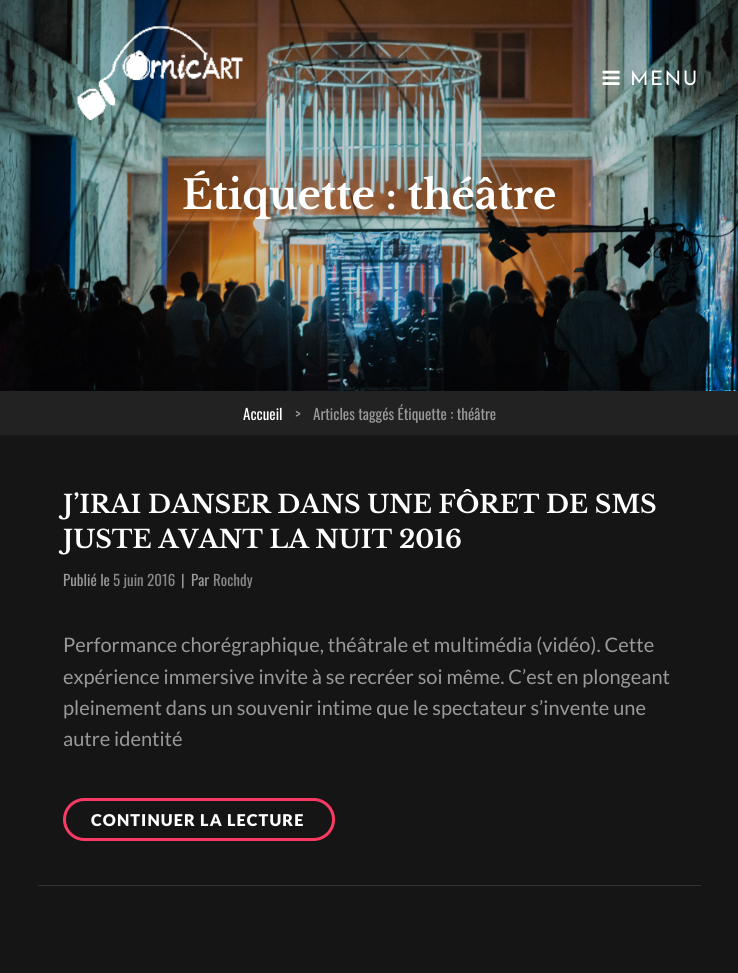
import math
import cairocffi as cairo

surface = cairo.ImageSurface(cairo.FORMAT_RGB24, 738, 973)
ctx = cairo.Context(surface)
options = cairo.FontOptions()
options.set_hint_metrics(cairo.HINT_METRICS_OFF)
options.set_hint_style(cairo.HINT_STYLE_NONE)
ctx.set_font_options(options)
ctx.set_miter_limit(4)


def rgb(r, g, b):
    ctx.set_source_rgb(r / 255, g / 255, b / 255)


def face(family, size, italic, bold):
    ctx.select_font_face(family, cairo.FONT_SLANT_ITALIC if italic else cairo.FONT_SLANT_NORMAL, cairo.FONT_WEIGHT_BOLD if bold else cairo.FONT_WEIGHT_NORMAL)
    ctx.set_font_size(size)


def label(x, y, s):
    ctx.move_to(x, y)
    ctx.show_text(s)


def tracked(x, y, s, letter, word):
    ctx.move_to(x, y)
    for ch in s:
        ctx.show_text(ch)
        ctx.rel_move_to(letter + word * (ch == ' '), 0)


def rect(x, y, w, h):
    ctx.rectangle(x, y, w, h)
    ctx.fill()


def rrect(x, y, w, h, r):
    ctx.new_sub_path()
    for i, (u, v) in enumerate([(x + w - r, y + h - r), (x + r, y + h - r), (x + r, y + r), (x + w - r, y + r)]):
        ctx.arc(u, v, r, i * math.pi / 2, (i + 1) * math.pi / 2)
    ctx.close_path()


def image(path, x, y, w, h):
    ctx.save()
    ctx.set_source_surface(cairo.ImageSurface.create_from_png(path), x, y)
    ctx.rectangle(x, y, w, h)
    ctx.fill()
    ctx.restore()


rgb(255, 255, 255)
ctx.paint()
image('image2.png', 0, 0, 738, 390)
image('image0.png', 77, 26, 166, 95)
image('image1.png', 602, 70, 18, 15)
face('Josefin Sans', 20, 0, 0)
rgb(255, 255, 255)
tracked(630, 85, 'MENU', 1.5, 0)
face('Libre Baskerville', 40, 0, 1)
label(182, 209, 'Étiquette : théâtre')
image('image3.png', 0, 390, 738, 1)
rgb(21, 21, 21)
rect(0, 435, 738, 538)
rgb(34, 34, 34)
rect(0, 391, 738, 44)
face('Oswald', 15, 0, 0)
rgb(255, 255, 255)
label(243, 420, 'Accueil')
rgb(153, 153, 153)
label(295, 420, '>')
label(313, 420, 'Articles taggés Étiquette : théâtre')
rgb(51, 51, 51)
rect(38, 885, 663, 1)
face('Libre Baskerville', 25, 0, 1)
rgb(255, 255, 255)
label(63, 513, 'J’IRAI DANSER DANS UNE FÔRET DE SMS')
label(63, 548, 'JUSTE AVANT LA NUIT 2016')
face('Oswald', 15, 0, 0)
rgb(153, 153, 153)
label(63, 586, 'Publié le')
rgb(136, 136, 136)
label(113, 586, '5 juin 2016')
rgb(153, 153, 153)
label(181, 586, '|')
label(191, 586, 'Par')
rgb(136, 136, 136)
label(213, 586, 'Rochdy')
face('Lato', 20, 0, 0)
rgb(153, 153, 153)
label(63, 652, 'Performance chorégraphique, théâtrale et multimédia (vidéo). Cette')
label(63, 684, 'expérience immersive invite à se recréer soi même. C’est en plongeant')
label(63, 715, 'pleinement dans un souvenir intime que le spectateur s’invente une')
label(63, 746, 'autre identité')
rrect(64.5, 799.5, 269, 40, 20)
rgb(251, 58, 100)
ctx.set_line_width(3)
ctx.stroke()
face('Lato Black', 16.25, 0, 0)
rgb(255, 255, 255)
tracked(91, 826, 'CONTINUER LA LECTURE', 1.1, 0)
surface.write_to_png('render.png')
